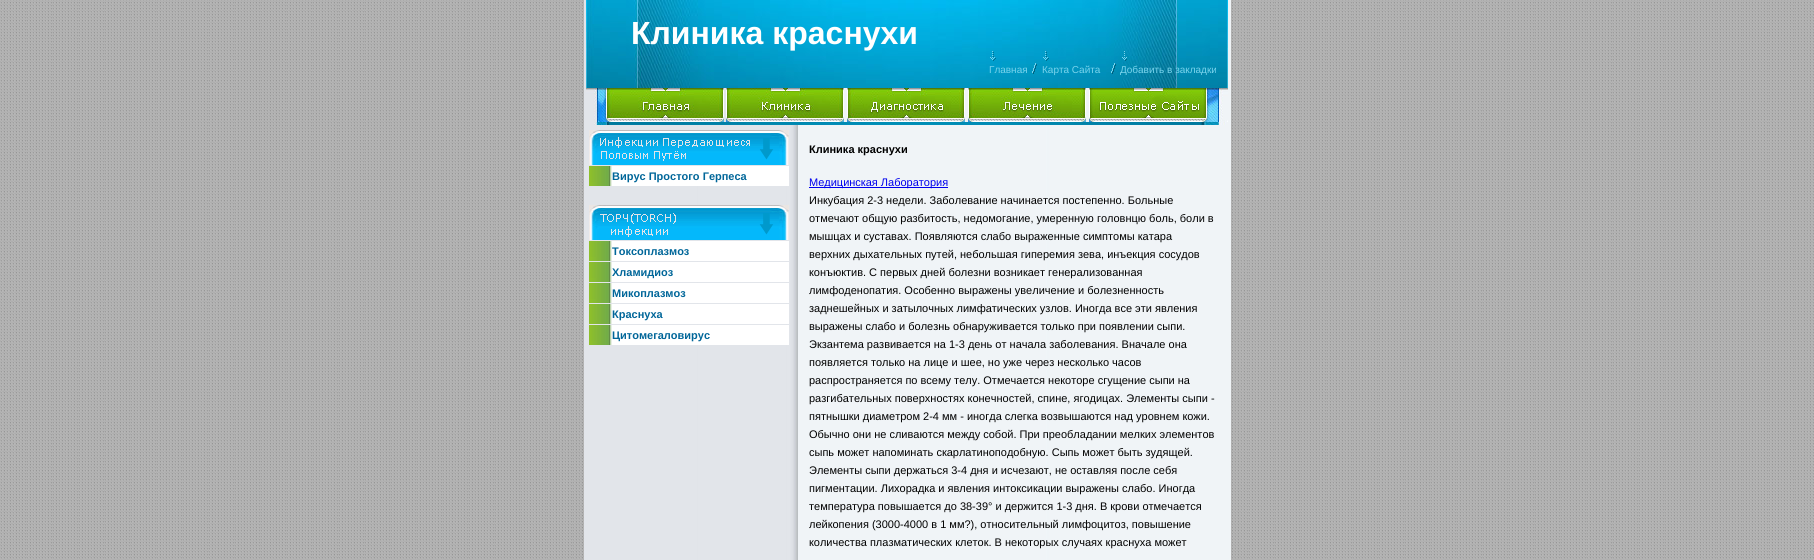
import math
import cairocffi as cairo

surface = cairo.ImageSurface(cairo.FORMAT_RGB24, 1814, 560)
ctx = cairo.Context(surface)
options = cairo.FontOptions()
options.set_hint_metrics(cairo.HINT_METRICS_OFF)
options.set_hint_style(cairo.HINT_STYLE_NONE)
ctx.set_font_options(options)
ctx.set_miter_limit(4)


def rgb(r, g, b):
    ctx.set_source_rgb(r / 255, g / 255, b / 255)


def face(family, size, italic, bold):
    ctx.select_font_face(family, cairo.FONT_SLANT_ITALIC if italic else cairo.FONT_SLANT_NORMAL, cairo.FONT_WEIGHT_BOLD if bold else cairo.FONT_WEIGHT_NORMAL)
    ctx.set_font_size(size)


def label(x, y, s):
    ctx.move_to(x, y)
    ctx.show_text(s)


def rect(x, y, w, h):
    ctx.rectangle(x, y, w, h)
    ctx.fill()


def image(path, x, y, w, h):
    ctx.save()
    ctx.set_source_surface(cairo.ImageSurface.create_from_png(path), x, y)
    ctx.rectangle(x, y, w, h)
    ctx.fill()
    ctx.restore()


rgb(255, 255, 255)
ctx.paint()
image('image0.png', 0, 0, 1814, 560)
image('image1.png', 584, 0, 647, 560)
image('image2.png', 586, 0, 642, 88)
face('Liberation Sans', 32, 0, 1)
rgb(255, 255, 255)
label(631, 44, 'Клиника краснухи')
image('image3.png', 990, 51, 6, 10)
face('Liberation Sans', 10, 0, 0)
rgb(121, 211, 236)
label(989, 73, 'Главная')
image('image4.png', 1032, 63, 5, 11)
image('image5.png', 1043, 51, 6, 10)
label(1042, 73, 'Карта Сайта')
image('image6.png', 1111, 63, 5, 11)
image('image7.png', 1122, 51, 5, 10)
label(1120, 73, 'Добавить в закладки')
image('image8.png', 586, 88, 20, 34)
image('image9.png', 606, 88, 118, 34)
image('image10.png', 726, 88, 118, 34)
image('image11.png', 847, 88, 118, 34)
image('image12.png', 968, 88, 118, 34)
image('image13.png', 1089, 88, 118, 34)
image('image14.png', 1207, 88, 21, 34)
image('image15.png', 594, 122, 632, 3)
image('image16.png', 589, 130, 200, 35)
image('image17.png', 589, 166, 23, 20)
rgb(255, 255, 255)
rect(612, 166, 177, 20)
face('Liberation Sans', 11, 0, 1)
rgb(0, 102, 153)
label(612, 180, 'Вирус Простого Герпеса')
image('image18.png', 589, 205, 200, 35)
image('image17.png', 589, 241, 23, 20)
rgb(255, 255, 255)
rect(612, 241, 177, 20)
rgb(0, 102, 153)
label(612, 255, 'Токсоплазмоз')
image('image17.png', 589, 262, 23, 20)
rgb(255, 255, 255)
rect(612, 262, 177, 20)
rgb(0, 102, 153)
label(612, 276, 'Хламидиоз')
image('image17.png', 589, 283, 23, 20)
rgb(255, 255, 255)
rect(612, 283, 177, 20)
rgb(0, 102, 153)
label(612, 297, 'Микоплазмоз')
image('image17.png', 589, 304, 23, 20)
rgb(255, 255, 255)
rect(612, 304, 177, 20)
rgb(0, 102, 153)
label(612, 318, 'Краснуха')
image('image17.png', 589, 325, 23, 20)
rgb(255, 255, 255)
rect(612, 325, 177, 20)
rgb(0, 102, 153)
label(612, 339, 'Цитомегаловирус')
rgb(0, 0, 0)
label(809, 153, 'Клиника краснухи')
rgb(0, 0, 238)
rect(809, 187, 139, 1)
face('Liberation Sans', 11, 0, 0)
label(809, 186, 'Медицинская Лаборатория')
rgb(0, 0, 0)
label(809, 204, 'Инкубация 2-3 недели. Заболевание начинается постепенно. Больные')
label(809, 222, 'отмечают общую разбитость, недомогание, умеренную головнцю боль, боли в')
label(809, 240, 'мышцах и суставах. Появляются слабо выраженные симптомы катара')
label(809, 258, 'верхних дыхательных путей, небольшая гиперемия зева, инъекция сосудов')
label(809, 276, 'конъюктив. С первых дней болезни возникает генерализованная')
label(809, 294, 'лимфоденопатия. Особенно выражены увеличение и болезненность')
label(809, 312, 'заднешейных и затылочных лимфатических узлов. Иногда все эти явления')
label(809, 330, 'выражены слабо и болезнь обнаруживается только при появлении сыпи.')
label(809, 348, 'Экзантема развивается на 1-3 день от начала заболевания. Вначале она')
label(809, 366, 'появляется только на лице и шее, но уже через несколько часов')
label(809, 384, 'распространяется по всему телу. Отмечается некоторе сгущение сыпи на')
label(809, 402, 'разгибательных поверхностях конечностей, спине, ягодицах. Элементы сыпи -')
label(809, 420, 'пятнышки диаметром 2-4 мм - иногда слегка возвышаются над уровнем кожи.')
label(809, 438, 'Обычно они не сливаются между собой. При преобладании мелких элементов')
label(809, 456, 'сыпь может напоминать скарлатиноподобную. Сыпь может быть зудящей.')
label(809, 474, 'Элементы сыпи держаться 3-4 дня и исчезают, не оставляя после себя')
label(809, 492, 'пигментации. Лихорадка и явления интоксикации выражены слабо. Иногда')
label(809, 510, 'температура повышается до 38-39° и держится 1-3 дня. В крови отмечается')
label(809, 528, 'лейкопения (3000-4000 в 1 мм?), относительный лимфоцитоз, повышение')
label(809, 546, 'количества плазматических клеток. В некоторых случаях краснуха может')
surface.write_to_png('render.png')
